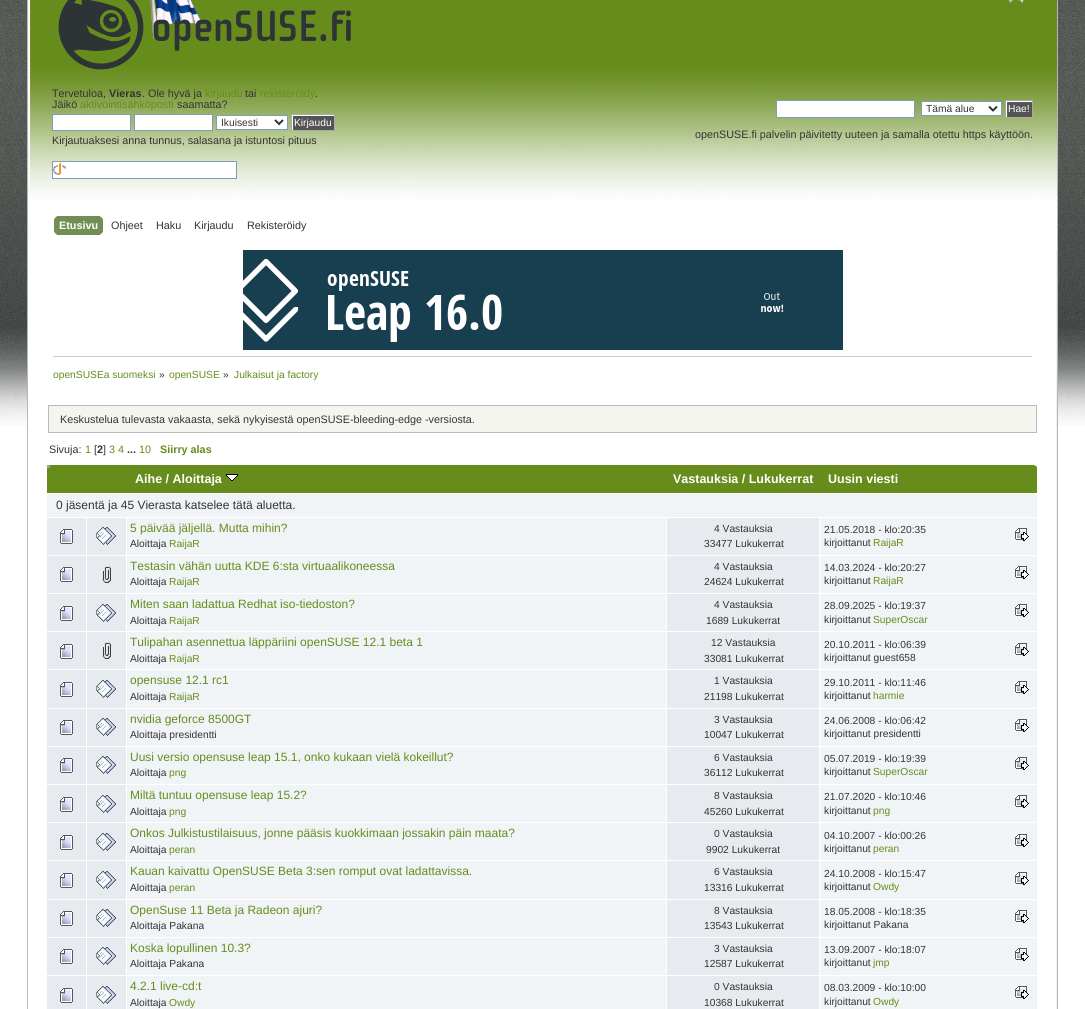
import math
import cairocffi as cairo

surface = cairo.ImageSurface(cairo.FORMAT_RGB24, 1085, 1009)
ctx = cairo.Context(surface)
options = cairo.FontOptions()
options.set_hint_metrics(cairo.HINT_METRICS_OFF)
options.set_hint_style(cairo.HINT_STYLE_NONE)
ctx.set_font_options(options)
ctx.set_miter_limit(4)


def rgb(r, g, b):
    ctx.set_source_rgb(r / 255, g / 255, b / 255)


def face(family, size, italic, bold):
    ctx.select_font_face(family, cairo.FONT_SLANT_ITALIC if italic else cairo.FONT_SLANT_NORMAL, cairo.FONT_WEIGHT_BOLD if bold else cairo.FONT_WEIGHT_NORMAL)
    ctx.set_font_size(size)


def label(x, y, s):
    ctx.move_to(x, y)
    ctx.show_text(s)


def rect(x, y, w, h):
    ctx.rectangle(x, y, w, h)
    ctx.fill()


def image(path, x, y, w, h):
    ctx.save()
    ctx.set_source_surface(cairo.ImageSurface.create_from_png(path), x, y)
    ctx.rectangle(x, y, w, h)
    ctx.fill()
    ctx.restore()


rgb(255, 255, 255)
ctx.paint()
image('image0.png', 0, 0, 1085, 426)
image('image1.png', 27, 0, 1030, 250)
rgb(184, 184, 184)
rect(1057, 0, 1, 250)
image('image2.png', 58, 0, 293, 70)
image('image3.png', 1008, 0, 16, 3)
face('Liberation Sans', 10.8, 0, 0)
rgb(51, 51, 51)
label(52, 97, 'Tervetuloa,')
face('Liberation Sans', 10.8, 0, 1)
label(109, 97, 'Vieras')
face('Liberation Sans', 10.8, 0, 0)
label(142, 97, '. Ole hyvä ja')
rgb(102, 140, 27)
label(205, 97, 'kirjaudu')
rgb(51, 51, 51)
label(245, 97, 'tai')
rgb(102, 140, 27)
label(260, 97, 'rekisteröidy')
rgb(51, 51, 51)
label(315, 97, '.')
label(52, 108, 'Jäikö')
rgb(102, 140, 27)
label(80, 108, 'aktivointisähköposti')
rgb(51, 51, 51)
label(177, 108, 'saamatta?')
rgb(255, 255, 255)
ctx.rectangle(52.5, 114.5, 78, 16)
ctx.fill_preserve()
rgb(127, 157, 185)
ctx.set_line_width(1)
ctx.stroke()
rgb(255, 255, 255)
ctx.rectangle(134.5, 114.5, 78, 16)
ctx.fill_preserve()
rgb(127, 157, 185)
ctx.stroke()
rgb(255, 255, 255)
ctx.rectangle(216.5, 115.5, 71, 14)
ctx.fill_preserve()
rgb(127, 157, 185)
ctx.stroke()
ctx.new_path()
ctx.move_to(275, 120)
ctx.line_to(279, 124)
ctx.line_to(283, 120)
rgb(51, 51, 51)
ctx.set_line_width(2)
ctx.stroke()
face('Liberation Sans', 10.25, 0, 0)
label(221, 126, 'Ikuisesti')
image('image4.png', 292, 115, 42, 15)
ctx.rectangle(291.5, 114.5, 43, 16)
rgb(170, 170, 170)
ctx.set_line_width(1)
ctx.stroke()
rgb(255, 255, 255)
label(294, 126, 'Kirjaudu')
face('Liberation Sans', 10.8, 0, 0)
rgb(51, 51, 51)
label(52, 144, 'Kirjautuaksesi anna tunnus, salasana ja istuntosi pituus')
rgb(255, 255, 255)
rect(53, 162, 183, 16)
image('image5.png', 53, 162, 13, 13)
ctx.rectangle(52.5, 161.5, 184, 17)
rgb(127, 157, 185)
ctx.stroke()
rgb(255, 255, 255)
ctx.rectangle(776.5, 100.5, 138, 17)
ctx.fill_preserve()
rgb(127, 157, 185)
ctx.stroke()
rgb(255, 255, 255)
ctx.rectangle(921.5, 101.5, 80, 14)
ctx.fill_preserve()
rgb(127, 157, 185)
ctx.stroke()
ctx.new_path()
ctx.move_to(989, 106.5)
ctx.line_to(993, 110.5)
ctx.line_to(997, 106.5)
rgb(51, 51, 51)
ctx.set_line_width(2)
ctx.stroke()
face('Liberation Sans', 10.25, 0, 0)
label(926, 112, 'Tämä alue')
image('image6.png', 1006, 101, 26, 16)
ctx.rectangle(1005.5, 100.5, 27, 17)
rgb(170, 170, 170)
ctx.set_line_width(1)
ctx.stroke()
rgb(255, 255, 255)
label(1008, 112, 'Hae!')
face('Liberation Sans', 10.8, 0, 0)
rgb(51, 51, 51)
label(695, 138, 'openSUSE.fi palvelin päivitetty uuteen ja samalla otettu https käyttöön.')
image('image7.png', 59, 216, 44, 19)
image('image8.png', 54, 216, 5, 19)
face('Liberation Sans', 10.8, 0, 1)
rgb(255, 255, 255)
label(59, 229, 'Etusivu')
face('Liberation Sans', 10.8, 0, 0)
rgb(51, 51, 51)
label(111, 229, 'Ohjeet')
label(156, 229, 'Haku')
label(194, 229, 'Kirjaudu')
label(247, 229, 'Rekisteröidy')
rgb(255, 255, 255)
rect(28, 250, 1028, 176)
rgb(183, 183, 183)
rect(27, 250, 1, 759)
image('image9.png', 1056, 250, 2, 759)
image('image10.png', 243, 250, 600, 100)
rgb(204, 204, 204)
rect(53, 356, 979, 1)
face('Liberation Sans', 10.25, 0, 0)
rgb(102, 140, 27)
label(53, 378, 'openSUSEa suomeksi')
rgb(51, 51, 51)
label(159, 378, '»')
rgb(102, 140, 27)
label(169, 378, 'openSUSE')
rgb(51, 51, 51)
label(223, 378, '»')
rgb(102, 140, 27)
label(234, 378, 'Julkaisut ja factory')
rgb(245, 245, 240)
ctx.rectangle(48.5, 405.5, 988, 27)
ctx.fill_preserve()
rgb(187, 187, 187)
ctx.stroke()
face('Liberation Sans', 10.8, 0, 0)
rgb(51, 51, 51)
label(60, 423, 'Keskustelua tulevasta vakaasta, sekä nykyisestä openSUSE-bleeding-edge -versiosta.')
label(49, 453, 'Sivuja:')
rgb(102, 140, 27)
label(85, 453, '1')
rgb(51, 51, 51)
label(94, 453, '[')
face('Liberation Sans', 10.8, 0, 1)
label(97, 453, '2')
face('Liberation Sans', 10.8, 0, 0)
label(103, 453, ']')
rgb(102, 140, 27)
label(109, 453, '3 4')
face('Liberation Sans', 10.8, 0, 1)
rgb(51, 51, 51)
label(127, 453, '...')
face('Liberation Sans', 10.8, 0, 0)
rgb(102, 140, 27)
label(139, 453, '10')
face('Liberation Sans', 10.8, 0, 1)
label(160, 453, 'Siirry alas')
rect(47, 465, 990, 28)
rgb(152, 166, 137)
rect(47, 465, 3, 3)
face('Liberation Sans', 12.5, 0, 1)
rgb(255, 255, 255)
label(135, 483, 'Aihe / Aloittaja')
image('image11.png', 226, 474, 12, 7)
label(673, 483, 'Vastauksia / Lukukerrat')
image('image12.png', 1034, 465, 3, 2)
label(828, 483, 'Uusin viesti')
rgb(240, 244, 247)
rect(47, 494, 990, 23)
face('Liberation Sans', 12, 0, 0)
rgb(51, 51, 51)
label(56, 509, '0 jäsentä ja 45 Vierasta katselee tätä aluetta.')
rgb(231, 234, 239)
rect(47, 518, 39, 37)
image('image13.png', 60, 529, 13, 15)
rect(87, 518, 39, 37)
image('image14.png', 96, 527, 20, 18)
rgb(240, 244, 247)
rect(127, 518, 539, 37)
rgb(102, 140, 27)
label(130, 532, '5 päivää jäljellä. Mutta mihin?')
face('Liberation Sans', 10.25, 0, 0)
rgb(51, 51, 51)
label(130, 547, 'Aloittaja')
rgb(102, 140, 27)
label(169, 547, 'RaijaR')
rgb(231, 234, 239)
rect(667, 518, 152, 37)
rgb(51, 51, 51)
label(714, 532, '4 Vastauksia')
label(704, 547, '33477 Lukukerrat')
rgb(240, 244, 247)
rect(820, 518, 217, 37)
rgb(51, 51, 51)
label(824, 533, '21.05.2018 - klo:20:35')
image('image15.png', 1015, 528, 14, 13)
label(824, 546, 'kirjoittanut')
rgb(102, 140, 27)
label(873, 546, 'RaijaR')
rgb(231, 234, 239)
rect(47, 556, 39, 37)
image('image13.png', 60, 567, 13, 15)
rect(87, 556, 39, 37)
image('image16.png', 102, 566, 9, 17)
rgb(240, 244, 247)
rect(127, 556, 539, 37)
face('Liberation Sans', 12, 0, 0)
rgb(102, 140, 27)
label(130, 570, 'Testasin vähän uutta KDE 6:sta virtuaalikoneessa')
face('Liberation Sans', 10.25, 0, 0)
rgb(51, 51, 51)
label(130, 585, 'Aloittaja')
rgb(102, 140, 27)
label(169, 585, 'RaijaR')
rgb(231, 234, 239)
rect(667, 556, 152, 37)
rgb(51, 51, 51)
label(714, 570, '4 Vastauksia')
label(704, 585, '24624 Lukukerrat')
rgb(240, 244, 247)
rect(820, 556, 217, 37)
rgb(51, 51, 51)
label(824, 571, '14.03.2024 - klo:20:27')
image('image15.png', 1015, 566, 14, 13)
label(824, 584, 'kirjoittanut')
rgb(102, 140, 27)
label(873, 584, 'RaijaR')
rgb(231, 234, 239)
rect(47, 594, 39, 37)
image('image13.png', 60, 606, 13, 15)
rect(87, 594, 39, 37)
image('image14.png', 96, 604, 20, 18)
rgb(240, 244, 247)
rect(127, 594, 539, 37)
face('Liberation Sans', 12, 0, 0)
rgb(102, 140, 27)
label(130, 608, 'Miten saan ladattua Redhat iso-tiedoston?')
face('Liberation Sans', 10.25, 0, 0)
rgb(51, 51, 51)
label(130, 624, 'Aloittaja')
rgb(102, 140, 27)
label(169, 624, 'RaijaR')
rgb(231, 234, 239)
rect(667, 594, 152, 37)
rgb(51, 51, 51)
label(714, 608, '4 Vastauksia')
label(706, 624, '1689 Lukukerrat')
rgb(240, 244, 247)
rect(820, 594, 217, 37)
rgb(51, 51, 51)
label(824, 609, '28.09.2025 - klo:19:37')
image('image15.png', 1015, 604, 14, 13)
label(824, 623, 'kirjoittanut')
rgb(102, 140, 27)
label(873, 623, 'SuperOscar')
rgb(231, 234, 239)
rect(47, 632, 39, 37)
image('image13.png', 60, 644, 13, 15)
rect(87, 632, 39, 37)
image('image16.png', 102, 642, 9, 17)
rgb(240, 244, 247)
rect(127, 632, 539, 37)
face('Liberation Sans', 12, 0, 0)
rgb(102, 140, 27)
label(130, 646, 'Tulipahan asennettua läppäriini openSUSE 12.1 beta 1')
face('Liberation Sans', 10.25, 0, 0)
rgb(51, 51, 51)
label(130, 662, 'Aloittaja')
rgb(102, 140, 27)
label(169, 662, 'RaijaR')
rgb(231, 234, 239)
rect(667, 632, 152, 37)
rgb(51, 51, 51)
label(711, 646, '12 Vastauksia')
label(704, 662, '33081 Lukukerrat')
rgb(240, 244, 247)
rect(820, 632, 217, 37)
rgb(51, 51, 51)
label(824, 648, '20.10.2011 - klo:06:39')
image('image15.png', 1015, 643, 14, 13)
label(824, 661, 'kirjoittanut guest658')
rgb(231, 234, 239)
rect(47, 670, 39, 38)
image('image13.png', 60, 682, 13, 15)
rect(87, 670, 39, 38)
image('image14.png', 96, 680, 20, 18)
rgb(240, 244, 247)
rect(127, 670, 539, 38)
face('Liberation Sans', 12, 0, 0)
rgb(102, 140, 27)
label(130, 684, 'opensuse 12.1 rc1')
face('Liberation Sans', 10.25, 0, 0)
rgb(51, 51, 51)
label(130, 700, 'Aloittaja')
rgb(102, 140, 27)
label(169, 700, 'RaijaR')
rgb(231, 234, 239)
rect(667, 670, 152, 38)
rgb(51, 51, 51)
label(714, 684, '1 Vastauksia')
label(704, 700, '21198 Lukukerrat')
rgb(240, 244, 247)
rect(820, 670, 217, 38)
rgb(51, 51, 51)
label(824, 686, '29.10.2011 - klo:11:46')
image('image15.png', 1015, 681, 14, 13)
label(824, 699, 'kirjoittanut')
rgb(102, 140, 27)
label(873, 699, 'harmie')
rgb(231, 234, 239)
rect(47, 709, 39, 37)
image('image13.png', 60, 720, 13, 15)
rect(87, 709, 39, 37)
image('image14.png', 96, 718, 20, 18)
rgb(240, 244, 247)
rect(127, 709, 539, 37)
face('Liberation Sans', 12, 0, 0)
rgb(102, 140, 27)
label(130, 723, 'nvidia geforce 8500GT')
face('Liberation Sans', 10.25, 0, 0)
rgb(51, 51, 51)
label(130, 738, 'Aloittaja presidentti')
rgb(231, 234, 239)
rect(667, 709, 152, 37)
rgb(51, 51, 51)
label(714, 723, '3 Vastauksia')
label(704, 738, '10047 Lukukerrat')
rgb(240, 244, 247)
rect(820, 709, 217, 37)
rgb(51, 51, 51)
label(824, 724, '24.06.2008 - klo:06:42')
image('image15.png', 1015, 719, 14, 13)
label(824, 737, 'kirjoittanut presidentti')
rgb(231, 234, 239)
rect(47, 747, 39, 37)
image('image13.png', 60, 758, 13, 15)
rect(87, 747, 39, 37)
image('image14.png', 96, 756, 20, 18)
rgb(240, 244, 247)
rect(127, 747, 539, 37)
face('Liberation Sans', 12, 0, 0)
rgb(102, 140, 27)
label(130, 761, 'Uusi versio opensuse leap 15.1, onko kukaan vielä kokeillut?')
face('Liberation Sans', 10.25, 0, 0)
rgb(51, 51, 51)
label(130, 776, 'Aloittaja')
rgb(102, 140, 27)
label(169, 776, 'png')
rgb(231, 234, 239)
rect(667, 747, 152, 37)
rgb(51, 51, 51)
label(714, 761, '6 Vastauksia')
label(704, 776, '36112 Lukukerrat')
rgb(240, 244, 247)
rect(820, 747, 217, 37)
rgb(51, 51, 51)
label(824, 762, '05.07.2019 - klo:19:39')
image('image15.png', 1015, 757, 14, 13)
label(824, 775, 'kirjoittanut')
rgb(102, 140, 27)
label(873, 775, 'SuperOscar')
rgb(231, 234, 239)
rect(47, 785, 39, 37)
image('image13.png', 60, 797, 13, 15)
rect(87, 785, 39, 37)
image('image14.png', 96, 795, 20, 18)
rgb(240, 244, 247)
rect(127, 785, 539, 37)
face('Liberation Sans', 12, 0, 0)
rgb(102, 140, 27)
label(130, 799, 'Miltä tuntuu opensuse leap 15.2?')
face('Liberation Sans', 10.25, 0, 0)
rgb(51, 51, 51)
label(130, 815, 'Aloittaja')
rgb(102, 140, 27)
label(169, 815, 'png')
rgb(231, 234, 239)
rect(667, 785, 152, 37)
rgb(51, 51, 51)
label(714, 799, '8 Vastauksia')
label(704, 815, '45260 Lukukerrat')
rgb(240, 244, 247)
rect(820, 785, 217, 37)
rgb(51, 51, 51)
label(824, 800, '21.07.2020 - klo:10:46')
image('image15.png', 1015, 795, 14, 13)
label(824, 814, 'kirjoittanut')
rgb(102, 140, 27)
label(873, 814, 'png')
rgb(231, 234, 239)
rect(47, 823, 39, 37)
image('image13.png', 60, 835, 13, 15)
rect(87, 823, 39, 37)
image('image14.png', 96, 833, 20, 18)
rgb(240, 244, 247)
rect(127, 823, 539, 37)
face('Liberation Sans', 12, 0, 0)
rgb(102, 140, 27)
label(130, 837, 'Onkos Julkistustilaisuus, jonne pääsis kuokkimaan jossakin päin maata?')
face('Liberation Sans', 10.25, 0, 0)
rgb(51, 51, 51)
label(130, 853, 'Aloittaja')
rgb(102, 140, 27)
label(169, 853, 'peran')
rgb(231, 234, 239)
rect(667, 823, 152, 37)
rgb(51, 51, 51)
label(714, 837, '0 Vastauksia')
label(706, 853, '9902 Lukukerrat')
rgb(240, 244, 247)
rect(820, 823, 217, 37)
rgb(51, 51, 51)
label(824, 839, '04.10.2007 - klo:00:26')
image('image15.png', 1015, 834, 14, 13)
label(824, 852, 'kirjoittanut')
rgb(102, 140, 27)
label(873, 852, 'peran')
rgb(231, 234, 239)
rect(47, 861, 39, 38)
image('image13.png', 60, 873, 13, 15)
rect(87, 861, 39, 38)
image('image14.png', 96, 871, 20, 18)
rgb(240, 244, 247)
rect(127, 861, 539, 38)
face('Liberation Sans', 12, 0, 0)
rgb(102, 140, 27)
label(130, 875, 'Kauan kaivattu OpenSUSE Beta 3:sen romput ovat ladattavissa.')
face('Liberation Sans', 10.25, 0, 0)
rgb(51, 51, 51)
label(130, 891, 'Aloittaja')
rgb(102, 140, 27)
label(169, 891, 'peran')
rgb(231, 234, 239)
rect(667, 861, 152, 38)
rgb(51, 51, 51)
label(714, 875, '6 Vastauksia')
label(704, 891, '13316 Lukukerrat')
rgb(240, 244, 247)
rect(820, 861, 217, 38)
rgb(51, 51, 51)
label(824, 877, '24.10.2008 - klo:15:47')
image('image15.png', 1015, 872, 14, 13)
label(824, 890, 'kirjoittanut')
rgb(102, 140, 27)
label(873, 890, 'Owdy')
rgb(231, 234, 239)
rect(47, 900, 39, 37)
image('image13.png', 60, 911, 13, 15)
rect(87, 900, 39, 37)
image('image14.png', 96, 909, 20, 18)
rgb(240, 244, 247)
rect(127, 900, 539, 37)
face('Liberation Sans', 12, 0, 0)
rgb(102, 140, 27)
label(130, 914, 'OpenSuse 11 Beta ja Radeon ajuri?')
face('Liberation Sans', 10.25, 0, 0)
rgb(51, 51, 51)
label(130, 929, 'Aloittaja Pakana')
rgb(231, 234, 239)
rect(667, 900, 152, 37)
rgb(51, 51, 51)
label(714, 914, '8 Vastauksia')
label(704, 929, '13543 Lukukerrat')
rgb(240, 244, 247)
rect(820, 900, 217, 37)
rgb(51, 51, 51)
label(824, 915, '18.05.2008 - klo:18:35')
image('image15.png', 1015, 910, 14, 13)
label(824, 928, 'kirjoittanut Pakana')
rgb(231, 234, 239)
rect(47, 938, 39, 37)
image('image13.png', 60, 949, 13, 15)
rect(87, 938, 39, 37)
image('image14.png', 96, 947, 20, 18)
rgb(240, 244, 247)
rect(127, 938, 539, 37)
face('Liberation Sans', 12, 0, 0)
rgb(102, 140, 27)
label(130, 952, 'Koska lopullinen 10.3?')
face('Liberation Sans', 10.25, 0, 0)
rgb(51, 51, 51)
label(130, 967, 'Aloittaja Pakana')
rgb(231, 234, 239)
rect(667, 938, 152, 37)
rgb(51, 51, 51)
label(714, 952, '3 Vastauksia')
label(704, 967, '12587 Lukukerrat')
rgb(240, 244, 247)
rect(820, 938, 217, 37)
rgb(51, 51, 51)
label(824, 953, '13.09.2007 - klo:18:07')
image('image15.png', 1015, 948, 14, 13)
label(824, 966, 'kirjoittanut')
rgb(102, 140, 27)
label(873, 966, 'jmp')
rgb(231, 234, 239)
rect(47, 976, 39, 33)
image('image13.png', 60, 988, 13, 15)
rect(87, 976, 39, 33)
image('image14.png', 96, 986, 20, 18)
rgb(240, 244, 247)
rect(127, 976, 539, 33)
face('Liberation Sans', 12, 0, 0)
rgb(102, 140, 27)
label(130, 990, '4.2.1 live-cd:t')
face('Liberation Sans', 10.25, 0, 0)
rgb(51, 51, 51)
label(130, 1006, 'Aloittaja')
rgb(102, 140, 27)
label(169, 1006, 'Owdy')
rgb(231, 234, 239)
rect(667, 976, 152, 33)
rgb(51, 51, 51)
label(714, 990, '0 Vastauksia')
label(704, 1006, '10368 Lukukerrat')
rgb(240, 244, 247)
rect(820, 976, 217, 33)
rgb(51, 51, 51)
label(824, 991, '08.03.2009 - klo:10:00')
image('image15.png', 1015, 986, 14, 13)
label(824, 1005, 'kirjoittanut')
rgb(102, 140, 27)
label(873, 1005, 'Owdy')
surface.write_to_png('render.png')
